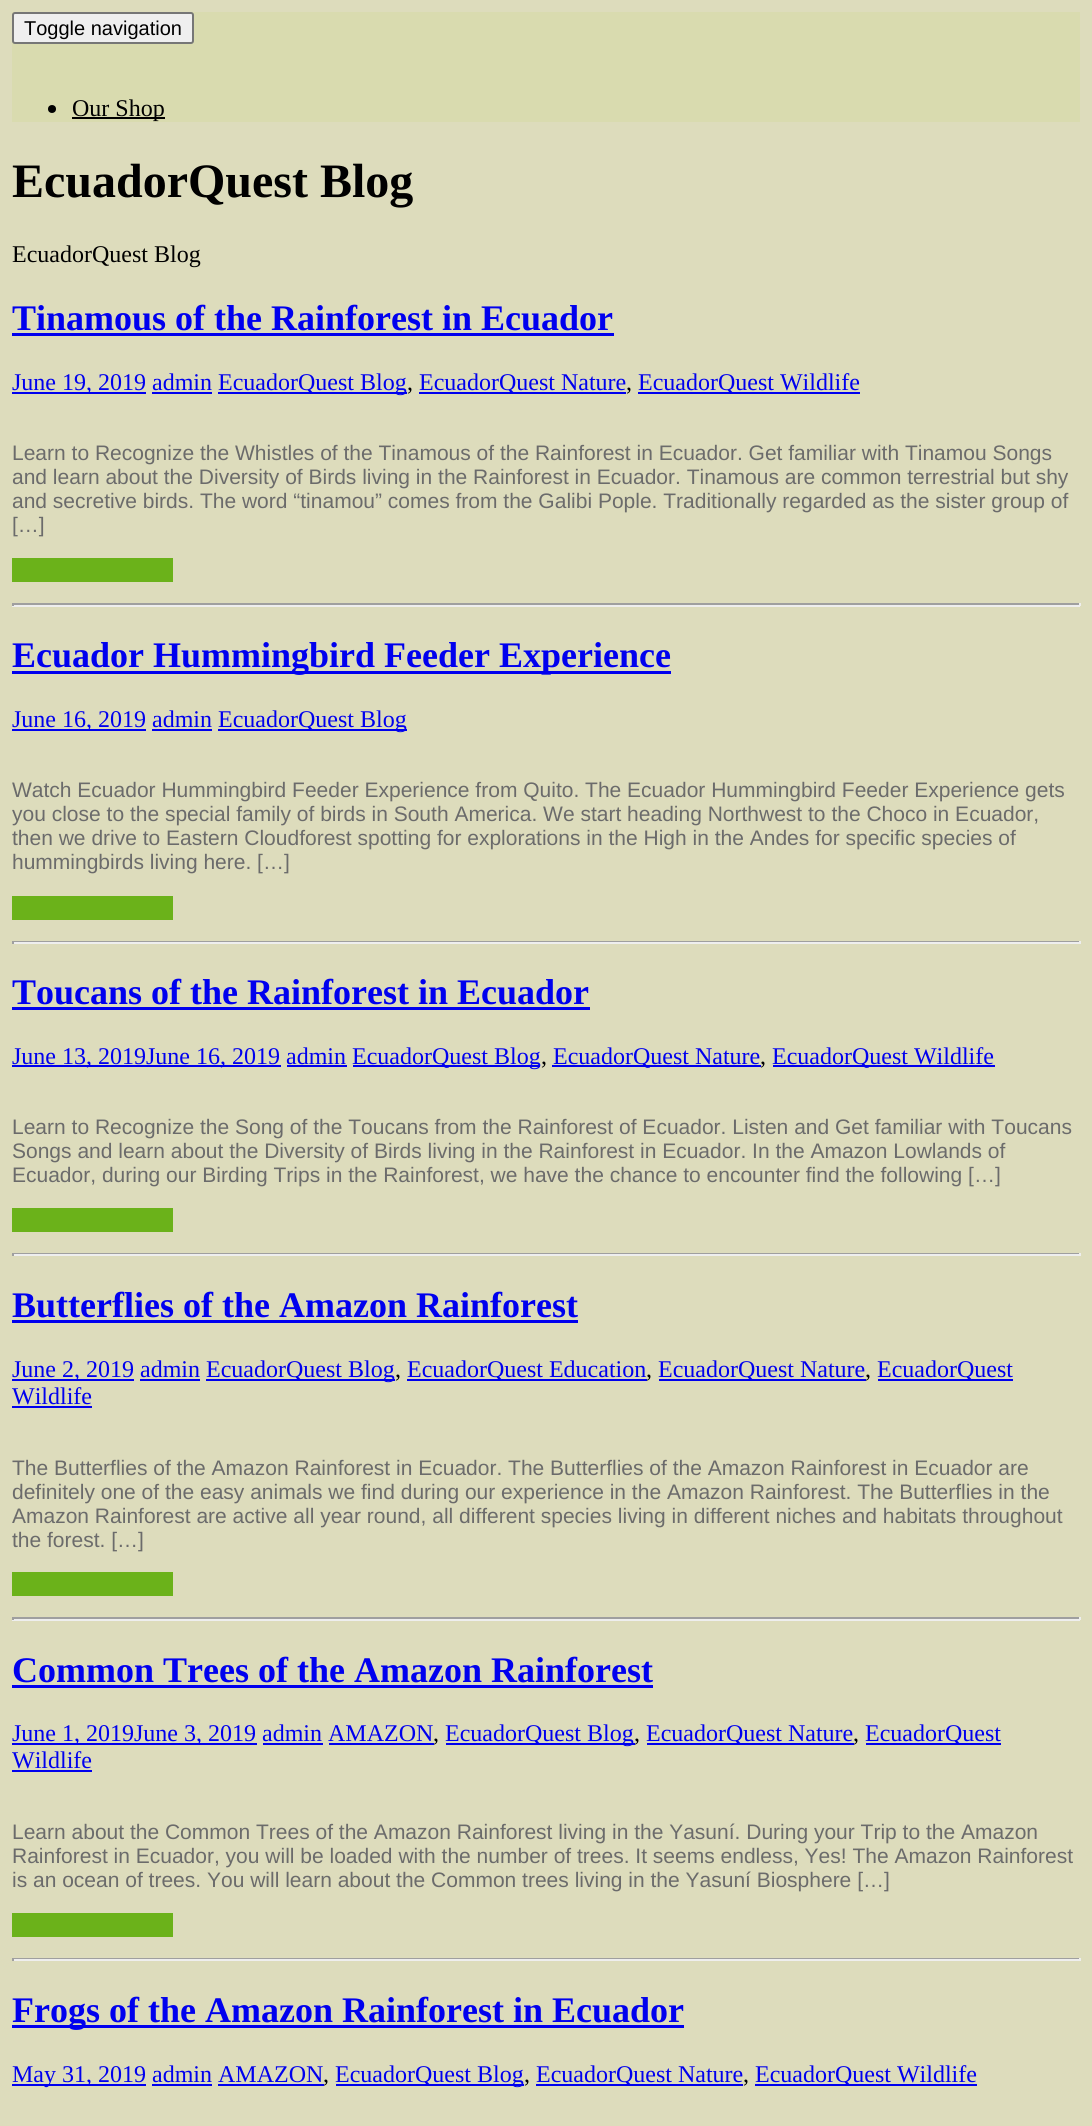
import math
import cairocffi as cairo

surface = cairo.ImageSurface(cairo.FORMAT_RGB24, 1092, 2126)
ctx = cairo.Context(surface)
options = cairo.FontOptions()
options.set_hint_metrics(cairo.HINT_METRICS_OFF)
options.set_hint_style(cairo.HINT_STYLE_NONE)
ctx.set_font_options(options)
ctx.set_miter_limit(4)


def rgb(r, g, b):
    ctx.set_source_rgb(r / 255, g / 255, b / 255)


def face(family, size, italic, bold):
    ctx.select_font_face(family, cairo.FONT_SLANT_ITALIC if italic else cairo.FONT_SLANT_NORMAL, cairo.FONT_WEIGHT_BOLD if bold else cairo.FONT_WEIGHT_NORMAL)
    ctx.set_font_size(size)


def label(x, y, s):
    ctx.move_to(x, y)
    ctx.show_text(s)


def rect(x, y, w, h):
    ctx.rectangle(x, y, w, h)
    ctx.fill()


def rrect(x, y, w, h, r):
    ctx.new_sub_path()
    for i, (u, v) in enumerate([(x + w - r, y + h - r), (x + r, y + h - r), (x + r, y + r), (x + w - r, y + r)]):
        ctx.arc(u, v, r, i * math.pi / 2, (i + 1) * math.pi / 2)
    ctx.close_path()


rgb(221, 220, 188)
ctx.paint()
rgb(217, 219, 175)
rect(12, 12, 1068, 110)
rgb(239, 239, 239)
rrect(13, 13, 180, 30, 2)
ctx.fill_preserve()
rgb(118, 118, 118)
ctx.stroke()
face('Liberation Sans', 20, 0, 0)
rgb(0, 0, 0)
label(24, 35, 'Toggle navigation')
ctx.new_path()
ctx.arc(52, 109, 4, 0, 2 * math.pi)
ctx.fill()
rect(72, 117, 93, 2)
face('Liberation Serif', 24, 0, 0)
label(72, 116, 'Our Shop')
face('Liberation Serif', 48, 0, 1)
label(12, 197, 'EcuadorQuest Blog')
face('Liberation Serif', 24, 0, 0)
label(12, 262, 'EcuadorQuest Blog')
face('Liberation Serif', 36, 0, 1)
rgb(0, 0, 238)
label(12, 330, 'Tinamous of the Rainforest in Ecuador')
rect(12, 333, 602, 3)
rect(12, 392, 134, 2)
face('Liberation Serif', 24, 0, 0)
label(12, 390, 'June 19, 2019 admin')
rect(218, 392, 189, 2)
label(218, 390, 'EcuadorQuest Blog')
rgb(0, 0, 0)
label(407, 390, ',')
rgb(0, 0, 238)
rect(419, 392, 207, 2)
label(419, 390, 'EcuadorQuest Nature')
rgb(0, 0, 0)
label(626, 390, ',')
rgb(0, 0, 238)
rect(638, 392, 222, 2)
label(638, 390, 'EcuadorQuest Wildlife')
rect(152, 392, 60, 2)
face('Liberation Sans', 21, 0, 0)
rgb(107, 107, 107)
label(12, 460, 'Learn to Recognize the Whistles of the Tinamous of the Rainforest in Ecuador. Get familiar with Tinamou Songs')
label(12, 484, 'and learn about the Diversity of Birds living in the Rainforest in Ecuador. Tinamous are common terrestrial but shy')
label(12, 508, 'and secretive birds. The word “tinamou” comes from the Galibi Pople. Traditionally regarded as the sister group of')
label(12, 532, '[…]')
rgb(107, 178, 26)
rect(12, 558, 161, 24)
rgb(159, 159, 159)
rect(12, 603, 1068, 2)
rgb(238, 238, 238)
rect(1079, 603, 2, 3)
rect(12, 605, 1068, 2)
rgb(159, 159, 159)
rect(12, 603, 2, 3)
rgb(0, 0, 238)
rect(12, 671, 659, 3)
face('Liberation Serif', 36, 0, 1)
label(12, 667, 'Ecuador Hummingbird Feeder Experience')
rect(12, 729, 134, 2)
face('Liberation Serif', 24, 0, 0)
label(12, 727, 'June 16, 2019 admin')
rect(218, 729, 189, 2)
label(218, 727, 'EcuadorQuest Blog')
rect(152, 729, 60, 2)
face('Liberation Sans', 21, 0, 0)
rgb(107, 107, 107)
label(12, 797, 'Watch Ecuador Hummingbird Feeder Experience from Quito. The Ecuador Hummingbird Feeder Experience gets')
label(12, 821, 'you close to the special family of birds in South America. We start heading Northwest to the Choco in Ecuador,')
label(12, 845, 'then we drive to Eastern Cloudforest spotting for explorations in the High in the Andes for specific species of')
label(12, 869, 'hummingbirds living here. […]')
rgb(107, 178, 26)
rect(12, 896, 161, 24)
rgb(159, 159, 159)
rect(12, 941, 1068, 1)
rgb(238, 238, 238)
rect(1079, 941, 2, 3)
rect(12, 942, 1068, 2)
rgb(159, 159, 159)
rect(12, 941, 2, 3)
face('Liberation Serif', 36, 0, 1)
rgb(0, 0, 238)
label(12, 1004, 'Toucans of the Rainforest in Ecuador')
rect(12, 1007, 578, 3)
rect(12, 1065, 269, 2)
face('Liberation Serif', 24, 0, 0)
label(12, 1064, 'June 13, 2019June 16, 2019 admin')
rect(353, 1065, 187, 2)
label(352, 1064, 'EcuadorQuest Blog')
rgb(0, 0, 0)
label(541, 1064, ',')
rgb(0, 0, 238)
rect(552, 1065, 209, 2)
label(553, 1064, 'EcuadorQuest Nature')
rgb(0, 0, 0)
label(760, 1064, ',')
rgb(0, 0, 238)
rect(773, 1065, 222, 2)
label(772, 1064, 'EcuadorQuest Wildlife')
rect(287, 1065, 60, 2)
face('Liberation Sans', 21, 0, 0)
rgb(107, 107, 107)
label(12, 1134, 'Learn to Recognize the Song of the Toucans from the Rainforest of Ecuador. Listen and Get familiar with Toucans')
label(12, 1158, 'Songs and learn about the Diversity of Birds living in the Rainforest in Ecuador. In the Amazon Lowlands of')
label(12, 1182, 'Ecuador, during our Birding Trips in the Rainforest, we have the chance to encounter find the following […]')
rgb(107, 178, 26)
rect(12, 1208, 161, 24)
rgb(159, 159, 159)
rect(12, 1253, 1068, 1)
rgb(238, 238, 238)
rect(1079, 1253, 2, 3)
rect(12, 1254, 1068, 2)
rgb(159, 159, 159)
rect(12, 1253, 2, 3)
face('Liberation Serif', 36, 0, 1)
rgb(0, 0, 238)
label(12, 1317, 'Butterflies of the Amazon Rainforest')
rect(12, 1320, 566, 3)
rect(12, 1379, 122, 2)
face('Liberation Serif', 24, 0, 0)
label(12, 1377, 'June 2, 2019 admin')
rect(206, 1379, 189, 2)
label(206, 1377, 'EcuadorQuest Blog')
rgb(0, 0, 0)
label(395, 1377, ',')
rgb(0, 0, 238)
rect(407, 1379, 240, 2)
label(407, 1377, 'EcuadorQuest Education')
rgb(0, 0, 0)
label(646, 1377, ',')
rgb(0, 0, 238)
rect(659, 1379, 207, 2)
label(658, 1377, 'EcuadorQuest Nature')
rgb(0, 0, 0)
label(865, 1377, ',')
rgb(0, 0, 238)
rect(878, 1379, 135, 2)
label(877, 1377, 'EcuadorQuest')
rect(140, 1379, 60, 2)
label(12, 1404, 'Wildlife')
rect(12, 1406, 80, 2)
face('Liberation Sans', 21, 0, 0)
rgb(107, 107, 107)
label(12, 1475, 'The Butterflies of the Amazon Rainforest in Ecuador. The Butterflies of the Amazon Rainforest in Ecuador are')
label(12, 1499, 'definitely one of the easy animals we find during our experience in the Amazon Rainforest. The Butterflies in the')
label(12, 1523, 'Amazon Rainforest are active all year round, all different species living in different niches and habitats throughout')
label(12, 1547, 'the forest. […]')
rgb(107, 178, 26)
rect(12, 1572, 161, 24)
rgb(159, 159, 159)
rect(12, 1617, 1068, 2)
rgb(238, 238, 238)
rect(1079, 1617, 2, 3)
rect(12, 1619, 1068, 2)
rgb(159, 159, 159)
rect(12, 1617, 2, 3)
face('Liberation Serif', 36, 0, 1)
rgb(0, 0, 238)
label(12, 1682, 'Common Trees of the Amazon Rainforest')
rect(12, 1685, 641, 3)
rect(12, 1743, 245, 2)
face('Liberation Serif', 24, 0, 0)
label(12, 1741, 'June 1, 2019June 3, 2019 admin AMAZON')
rgb(0, 0, 0)
label(433, 1741, ',')
rgb(0, 0, 238)
rect(329, 1743, 105, 2)
rect(446, 1743, 189, 2)
label(445, 1741, 'EcuadorQuest Blog')
rgb(0, 0, 0)
label(634, 1741, ',')
rgb(0, 0, 238)
rect(647, 1743, 207, 2)
label(646, 1741, 'EcuadorQuest Nature')
rgb(0, 0, 0)
label(853, 1741, ',')
rgb(0, 0, 238)
rect(866, 1743, 135, 2)
label(865, 1741, 'EcuadorQuest')
rect(263, 1743, 60, 2)
label(12, 1768, 'Wildlife')
rect(12, 1770, 80, 2)
face('Liberation Sans', 21, 0, 0)
rgb(107, 107, 107)
label(12, 1839, 'Learn about the Common Trees of the Amazon Rainforest living in the Yasuní. During your Trip to the Amazon')
label(12, 1863, 'Rainforest in Ecuador, you will be loaded with the number of trees. It seems endless, Yes! The Amazon Rainforest')
label(12, 1887, 'is an ocean of trees. You will learn about the Common trees living in the Yasuní Biosphere […]')
rgb(107, 178, 26)
rect(12, 1913, 161, 24)
rgb(159, 159, 159)
rect(12, 1958, 1068, 1)
rgb(238, 238, 238)
rect(1079, 1958, 2, 3)
rect(12, 1959, 1068, 2)
rgb(159, 159, 159)
rect(12, 1958, 2, 3)
rgb(0, 0, 238)
rect(12, 2025, 672, 3)
face('Liberation Serif', 36, 0, 1)
label(12, 2022, 'Frogs of the Amazon Rainforest in Ecuador')
rect(12, 2084, 134, 2)
face('Liberation Serif', 24, 0, 0)
label(12, 2082, 'May 31, 2019 admin AMAZON')
rgb(0, 0, 0)
label(323, 2082, ',')
rgb(0, 0, 238)
rect(218, 2084, 106, 2)
rect(336, 2084, 188, 2)
label(335, 2082, 'EcuadorQuest Blog')
rgb(0, 0, 0)
label(524, 2082, ',')
rgb(0, 0, 238)
rect(536, 2084, 207, 2)
label(536, 2082, 'EcuadorQuest Nature')
rgb(0, 0, 0)
label(743, 2082, ',')
rgb(0, 0, 238)
rect(755, 2084, 222, 2)
label(755, 2082, 'EcuadorQuest Wildlife')
rect(152, 2084, 60, 2)
surface.write_to_png('render.png')
